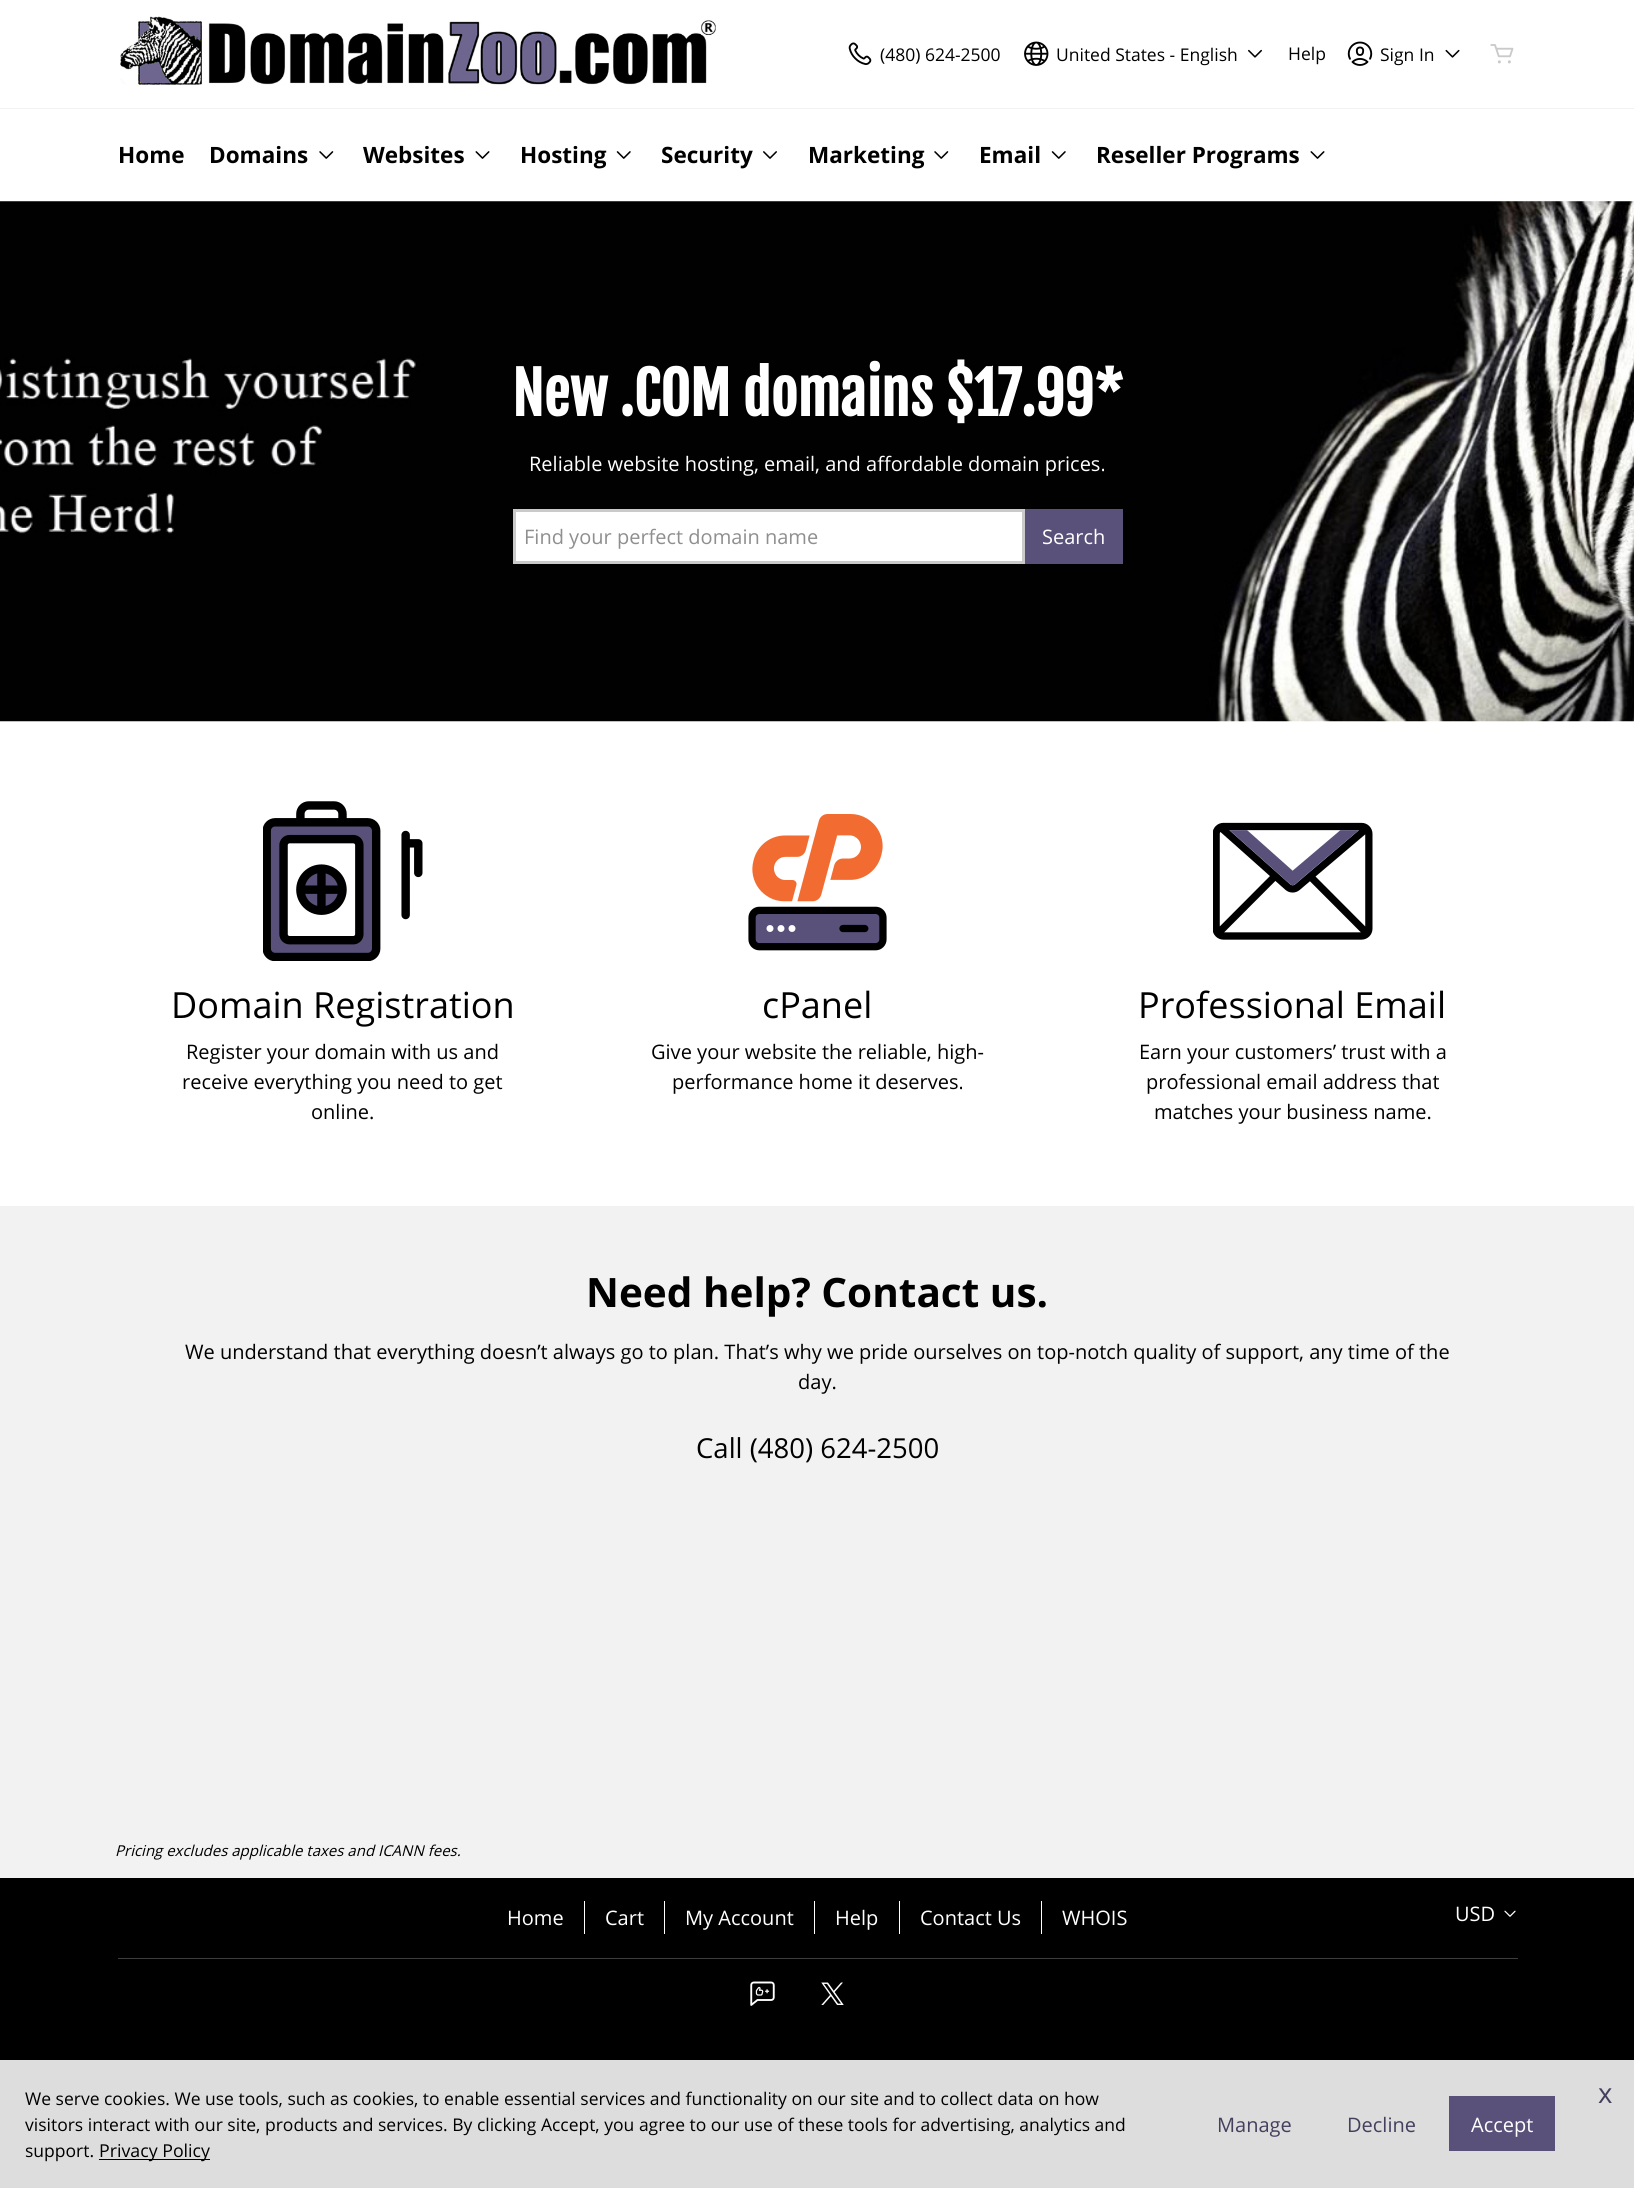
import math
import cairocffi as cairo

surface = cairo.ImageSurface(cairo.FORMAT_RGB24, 1634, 2188)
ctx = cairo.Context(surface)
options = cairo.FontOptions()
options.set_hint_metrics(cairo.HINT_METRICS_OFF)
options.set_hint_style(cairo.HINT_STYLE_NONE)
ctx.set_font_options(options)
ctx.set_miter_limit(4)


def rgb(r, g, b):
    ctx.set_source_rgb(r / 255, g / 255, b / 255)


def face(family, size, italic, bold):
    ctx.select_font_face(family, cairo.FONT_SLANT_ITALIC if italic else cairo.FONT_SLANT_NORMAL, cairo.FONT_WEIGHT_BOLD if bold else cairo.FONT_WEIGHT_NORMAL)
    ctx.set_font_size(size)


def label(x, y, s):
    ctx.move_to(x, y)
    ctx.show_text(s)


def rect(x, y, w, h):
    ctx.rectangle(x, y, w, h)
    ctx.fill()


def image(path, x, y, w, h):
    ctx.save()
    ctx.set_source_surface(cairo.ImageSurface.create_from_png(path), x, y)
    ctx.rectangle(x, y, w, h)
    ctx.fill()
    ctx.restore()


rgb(242, 242, 242)
ctx.paint()
rgb(255, 255, 255)
rect(0, 0, 1634, 108)
image('image0.png', 120, 16, 596, 69)
image('image1.png', 848, 42, 24, 23)
face('Open Sans', 17.5, 0, 0)
rgb(0, 0, 0)
label(880, 61, '(480) 624-2500')
image('image2.png', 1024, 41, 25, 25)
label(1056, 61, 'United States - English')
image('image3.png', 1248, 49, 14, 9)
label(1288, 60, 'Help')
image('image4.png', 1347, 41, 26, 25)
label(1380, 61, 'Sign In')
image('image5.png', 1445, 49, 15, 9)
image('image6.png', 1490, 44, 24, 20)
rgb(255, 255, 255)
rect(0, 109, 1634, 92)
face('Open Sans', 22.5, 0, 1)
rgb(0, 0, 0)
label(118, 163, 'Home')
label(209, 163, 'Domains')
image('image7.png', 319, 151, 15, 8)
label(363, 163, 'Websites')
image('image8.png', 475, 151, 15, 8)
label(520, 163, 'Hosting')
image('image9.png', 616, 151, 15, 8)
label(661, 163, 'Security')
image('image10.png', 763, 151, 14, 8)
label(808, 163, 'Marketing')
image('image7.png', 934, 151, 15, 8)
label(979, 163, 'Email')
image('image9.png', 1051, 151, 15, 8)
label(1096, 163, 'Reseller Programs')
image('image8.png', 1310, 151, 15, 8)
rgb(255, 255, 255)
rect(0, 721, 1634, 485)
image('image11.png', 0, 201, 1634, 521)
face('Fjalla One', 57.75, 0, 1)
label(512, 416, 'New .COM domains $17.99*')
face('Open Sans', 20, 0, 0)
label(529, 471, 'Reliable website hosting, email, and affordable domain prices.')
ctx.rectangle(514.5, 510.5, 509, 52)
ctx.fill_preserve()
rgb(202, 202, 202)
ctx.set_line_width(3)
ctx.stroke()
rgb(143, 143, 143)
label(524, 544, 'Find your perfect domain name')
rgb(89, 81, 122)
rect(1025, 509, 98, 55)
rgb(255, 255, 255)
label(1042, 544, 'Search')
image('image12.png', 263, 801, 160, 160)
face('Open Sans', 36, 0, 0)
rgb(0, 0, 0)
label(171, 1018, 'Domain Registration')
face('Open Sans', 20, 0, 0)
label(186, 1059, 'Register your domain with us and')
label(182, 1089, 'receive everything you need to get')
label(311, 1119, 'online.')
image('image13.png', 748, 814, 139, 137)
face('Open Sans', 36, 0, 0)
label(762, 1018, 'cPanel')
face('Open Sans', 20, 0, 0)
label(651, 1059, 'Give your website the reliable, high-')
label(672, 1089, 'performance home it deserves.')
image('image14.png', 1213, 822, 160, 118)
face('Open Sans', 36, 0, 0)
label(1138, 1018, 'Professional Email')
face('Open Sans', 20, 0, 0)
label(1139, 1059, 'Earn your customers’ trust with a')
label(1146, 1089, 'professional email address that')
label(1154, 1119, 'matches your business name.')
face('Open Sans', 40.5, 0, 1)
label(586, 1307, 'Need help? Contact us.')
face('Open Sans', 20, 0, 0)
label(185, 1359, 'We understand that everything doesn’t always go to plan. That’s why we pride ourselves on top-notch quality of support, any time of the')
label(798, 1389, 'day.')
face('Open Sans', 27.5, 0, 0)
label(696, 1458, 'Call (480) 624-2500')
face('Open Sans', 15, 1, 0)
label(115, 1856, 'Pricing excludes applicable taxes and ICANN fees.')
rect(0, 1878, 1634, 182)
rgb(61, 61, 61)
rect(118, 1958, 1400, 1)
face('Open Sans', 20, 0, 0)
rgb(255, 255, 255)
label(507, 1925, 'Home')
rect(584, 1901, 1, 33)
label(605, 1925, 'Cart')
rect(664, 1901, 1, 33)
label(685, 1925, 'My Account')
rect(814, 1901, 1, 33)
label(835, 1925, 'Help')
rect(899, 1901, 1, 33)
label(920, 1925, 'Contact Us')
rect(1041, 1901, 1, 33)
label(1062, 1925, 'WHOIS')
label(1455, 1921, 'USD')
image('image15.png', 1504, 1910, 12, 7)
image('image16.png', 750, 1981, 25, 25)
image('image17.png', 821, 1982, 23, 23)
rgb(221, 221, 221)
rect(0, 2060, 1634, 128)
face('Open Sans', 17.5, 0, 0)
rgb(0, 0, 0)
label(25, 2105, 'We serve cookies. We use tools, such as cookies, to enable essential services and functionality on our site and to collect data on how')
label(25, 2131, 'visitors interact with our site, products and services. By clicking Accept, you agree to our use of these tools for advertising, analytics and')
label(25, 2157, 'support.')
rect(99, 2159, 111, 1)
face('Open Sans', 17.75, 0, 0)
label(99, 2157, 'Privacy Policy')
face('Open Sans', 20, 0, 0)
rgb(69, 63, 94)
label(1217, 2132, 'Manage')
label(1347, 2132, 'Decline')
rgb(89, 81, 122)
rect(1449, 2096, 106, 55)
rgb(255, 255, 255)
label(1471, 2132, 'Accept')
face('Open Sans', 27.5, 0, 0)
rgb(69, 63, 94)
label(1598, 2103, 'x')
surface.write_to_png('render.png')
